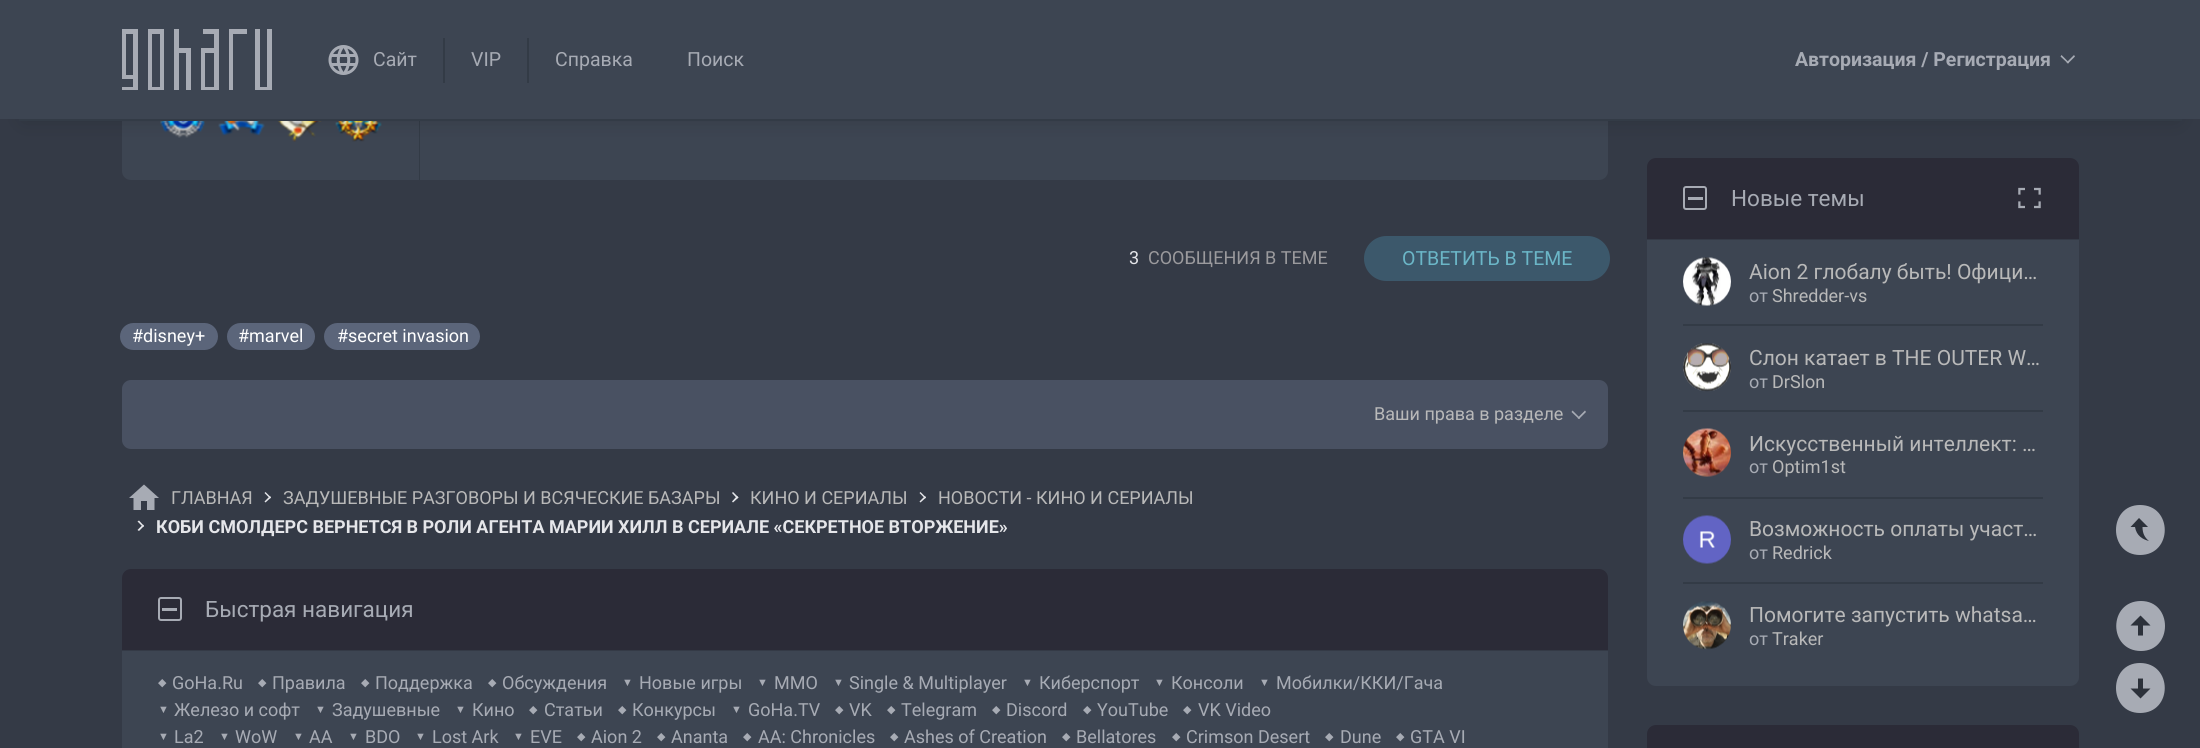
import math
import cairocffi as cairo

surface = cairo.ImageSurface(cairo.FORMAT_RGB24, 2200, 748)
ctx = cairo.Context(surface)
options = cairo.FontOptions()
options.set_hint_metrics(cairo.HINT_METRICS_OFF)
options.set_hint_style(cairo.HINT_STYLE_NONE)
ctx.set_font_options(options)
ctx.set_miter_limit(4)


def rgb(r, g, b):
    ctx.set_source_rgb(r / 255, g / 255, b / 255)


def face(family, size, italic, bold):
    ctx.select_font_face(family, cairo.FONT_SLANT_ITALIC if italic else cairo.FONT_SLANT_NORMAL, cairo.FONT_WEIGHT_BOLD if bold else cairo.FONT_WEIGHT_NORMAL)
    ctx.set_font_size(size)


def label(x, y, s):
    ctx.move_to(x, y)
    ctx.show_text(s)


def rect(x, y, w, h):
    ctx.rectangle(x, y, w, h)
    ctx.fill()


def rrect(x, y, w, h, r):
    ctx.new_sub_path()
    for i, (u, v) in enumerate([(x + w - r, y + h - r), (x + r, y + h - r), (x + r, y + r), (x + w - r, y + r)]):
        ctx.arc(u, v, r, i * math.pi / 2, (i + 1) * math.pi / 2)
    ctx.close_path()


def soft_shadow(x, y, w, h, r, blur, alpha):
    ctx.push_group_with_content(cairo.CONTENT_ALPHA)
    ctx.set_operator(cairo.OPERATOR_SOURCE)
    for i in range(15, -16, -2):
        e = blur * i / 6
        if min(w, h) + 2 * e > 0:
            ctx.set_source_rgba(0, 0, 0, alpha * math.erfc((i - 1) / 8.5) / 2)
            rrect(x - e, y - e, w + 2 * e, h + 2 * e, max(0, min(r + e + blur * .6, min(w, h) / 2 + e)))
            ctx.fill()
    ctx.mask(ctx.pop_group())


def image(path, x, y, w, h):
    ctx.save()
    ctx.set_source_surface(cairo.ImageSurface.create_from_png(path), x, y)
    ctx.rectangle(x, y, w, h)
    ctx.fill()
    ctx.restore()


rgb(52, 58, 70)
ctx.paint()
rgb(61, 69, 82)
ctx.new_path()
ctx.move_to(122, -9)
ctx.line_to(420, -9)
ctx.line_to(420, 180)
ctx.line_to(131, 180)
ctx.curve_to(126, 180, 122, 176, 122, 171)
ctx.close_path()
ctx.fill()
rgb(51, 59, 70)
rect(419, 121, 1, 59)
image('image2.png', 160, 121, 45, 17)
image('image3.png', 218, 121, 47, 15)
image('image4.png', 277, 121, 45, 21)
image('image5.png', 335, 121, 47, 21)
rgb(61, 69, 82)
ctx.new_path()
ctx.move_to(420, -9)
ctx.line_to(1608, -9)
ctx.line_to(1608, 171)
ctx.curve_to(1608, 176, 1604, 180, 1599, 180)
ctx.line_to(420, 180)
ctx.close_path()
ctx.fill()
rgb(0, 0, 0)
soft_shadow(23, 45, 2155, 75, 0, 11, 0.15)
rgb(61, 69, 82)
rect(0, 0, 2200, 119)
rgb(51, 59, 70)
rect(19, 119, 2163, 2)
image('image0.png', 122, 29, 150, 61)
image('image1.png', 328, 45, 31, 30)
face('Roboto', 19.5, 0, 0)
rgb(167, 171, 180)
label(373, 66, 'Сайт')
rgb(51, 59, 70)
rect(443, 38, 2, 45)
rgb(167, 171, 180)
label(471, 66, 'VIP')
rgb(51, 59, 70)
rect(527, 38, 2, 45)
rgb(167, 171, 180)
label(555, 66, 'Справка')
label(687, 66, 'Поиск')
face('Roboto', 19.5, 0, 1)
label(1795, 66, 'Авторизация / Регистрация')
ctx.new_path()
ctx.move_to(2074, 55)
ctx.line_to(2075, 56.5)
ctx.line_to(2068, 63.5)
ctx.line_to(2066.5, 62.5)
ctx.close_path()
ctx.fill()
ctx.new_path()
ctx.move_to(2061.5, 55)
ctx.line_to(2069, 62.5)
ctx.line_to(2068, 63.5)
ctx.line_to(2060.5, 56.5)
ctx.close_path()
ctx.fill()
face('Roboto', 18, 0, 0)
rgb(229, 230, 234)
label(1129, 264, '3')
rgb(155, 154, 157)
label(1148, 264, 'СООБЩЕНИЯ В ТЕМЕ')
rgb(60, 88, 107)
rrect(1365, 237, 244, 43, 21.5)
ctx.fill_preserve()
ctx.stroke()
face('Roboto', 19.5, 0, 0)
rgb(107, 182, 199)
label(1402, 265, 'ОТВЕТИТЬ В ТЕМЕ')
rgb(91, 101, 122)
rrect(120, 323, 98, 27, 13.5)
ctx.fill()
face('Roboto', 18, 0, 0)
rgb(255, 255, 255)
label(132, 342, '#disney+')
rgb(91, 101, 122)
rrect(227, 323, 88, 27, 13.5)
ctx.fill()
rgb(255, 255, 255)
label(238, 342, '#marvel')
rgb(91, 101, 122)
rrect(324, 323, 156, 27, 13.5)
ctx.fill()
rgb(255, 255, 255)
label(337, 342, '#secret invasion')
rgb(73, 81, 98)
rrect(122, 380, 1486, 69, 9)
ctx.fill()
rgb(185, 185, 185)
label(1374, 420, 'Ваши права в разделе')
rgb(167, 171, 180)
ctx.new_path()
ctx.move_to(1585, 410.5)
ctx.line_to(1586, 412)
ctx.line_to(1579, 419)
ctx.line_to(1577.5, 418)
ctx.close_path()
ctx.fill()
ctx.new_path()
ctx.move_to(1572.5, 410.5)
ctx.line_to(1580, 418)
ctx.line_to(1579, 419)
ctx.line_to(1571.5, 412)
ctx.close_path()
ctx.fill()
image('image6.png', 129, 484, 30, 26)
rgb(185, 185, 185)
label(171, 504, 'ГЛАВНАЯ')
rgb(229, 230, 234)
ctx.new_path()
ctx.move_to(265.5, 492)
ctx.line_to(271, 497.5)
ctx.line_to(270, 498.5)
ctx.line_to(264.5, 493)
ctx.close_path()
ctx.fill()
ctx.new_path()
ctx.move_to(270, 496)
ctx.line_to(271, 497.5)
ctx.line_to(265.5, 502.5)
ctx.line_to(264.5, 501.5)
ctx.close_path()
ctx.fill()
rgb(185, 185, 185)
label(283, 504, 'ЗАДУШЕВНЫЕ РАЗГОВОРЫ И ВСЯЧЕСКИЕ БАЗАРЫ')
rgb(229, 230, 234)
ctx.new_path()
ctx.move_to(733, 492)
ctx.line_to(738.5, 497.5)
ctx.line_to(737, 498.5)
ctx.line_to(732, 493)
ctx.close_path()
ctx.fill()
ctx.new_path()
ctx.move_to(737, 496)
ctx.line_to(738.5, 497.5)
ctx.line_to(733, 502.5)
ctx.line_to(732, 501.5)
ctx.close_path()
ctx.fill()
rgb(185, 185, 185)
label(750, 504, 'КИНО И СЕРИАЛЫ')
rgb(229, 230, 234)
ctx.new_path()
ctx.move_to(920.5, 492)
ctx.line_to(926, 497.5)
ctx.line_to(925, 498.5)
ctx.line_to(919.5, 493)
ctx.close_path()
ctx.fill()
ctx.new_path()
ctx.move_to(925, 496)
ctx.line_to(926, 497.5)
ctx.line_to(920.5, 502.5)
ctx.line_to(919.5, 501.5)
ctx.close_path()
ctx.fill()
rgb(185, 185, 185)
label(938, 504, 'НОВОСТИ - КИНО И СЕРИАЛЫ')
rgb(229, 230, 234)
ctx.new_path()
ctx.move_to(139, 520.5)
ctx.line_to(144, 526)
ctx.line_to(143, 527)
ctx.line_to(137.5, 521.5)
ctx.close_path()
ctx.fill()
ctx.new_path()
ctx.move_to(143, 524.5)
ctx.line_to(144, 526)
ctx.line_to(139, 531)
ctx.line_to(137.5, 530)
ctx.close_path()
ctx.fill()
face('Roboto', 18, 0, 1)
label(156, 533, 'КОБИ СМОЛДЕРС ВЕРНЕТСЯ В РОЛИ АГЕНТА МАРИИ ХИЛЛ В СЕРИАЛЕ «СЕКРЕТНОЕ ВТОРЖЕНИЕ»')
rgb(167, 171, 180)
ctx.new_path()
ctx.move_to(2140, 555)
ctx.curve_to(2173, 555, 2173, 505, 2140, 505)
ctx.curve_to(2108, 505, 2108, 555, 2140, 555)
ctx.close_path()
ctx.fill()
rgb(44, 49, 58)
ctx.new_path()
ctx.move_to(2135, 527)
ctx.line_to(2130.5, 527)
ctx.line_to(2139, 518)
ctx.line_to(2148, 527)
ctx.line_to(2142.5, 527)
ctx.curve_to(2142.5, 533, 2144.5, 537.5, 2149, 541)
ctx.curve_to(2143, 539.5, 2136.5, 536, 2135, 527)
ctx.close_path()
ctx.fill()
rgb(167, 171, 180)
ctx.new_path()
ctx.move_to(2141, 651)
ctx.curve_to(2173, 651, 2173, 601, 2141, 601)
ctx.curve_to(2108, 601, 2108, 651, 2141, 651)
ctx.close_path()
ctx.fill()
rgb(44, 49, 58)
ctx.new_path()
ctx.move_to(2138, 635.5)
ctx.line_to(2138, 625.5)
ctx.line_to(2130.5, 625.5)
ctx.line_to(2140.5, 615.5)
ctx.line_to(2150.5, 625.5)
ctx.line_to(2143, 625.5)
ctx.line_to(2143, 635.5)
ctx.close_path()
ctx.fill()
rgb(167, 171, 180)
ctx.new_path()
ctx.move_to(2140, 663)
ctx.curve_to(2108, 663, 2108, 713, 2140, 713)
ctx.curve_to(2173, 713, 2173, 663, 2140, 663)
ctx.close_path()
ctx.fill()
rgb(44, 49, 58)
ctx.new_path()
ctx.move_to(2143, 678.5)
ctx.line_to(2143, 688.5)
ctx.line_to(2150.5, 688.5)
ctx.line_to(2140.5, 698.5)
ctx.line_to(2130.5, 688.5)
ctx.line_to(2138, 688.5)
ctx.line_to(2138, 678.5)
ctx.close_path()
ctx.fill()
rgb(43, 43, 55)
ctx.new_path()
ctx.move_to(131, 569)
ctx.line_to(1599, 569)
ctx.curve_to(1604, 569, 1608, 573, 1608, 578)
ctx.line_to(1608, 650)
ctx.line_to(122, 650)
ctx.line_to(122, 578)
ctx.curve_to(122, 573, 126, 569, 131, 569)
ctx.close_path()
ctx.fill()
rrect(159, 598, 22, 22, 2)
rgb(167, 171, 180)
ctx.stroke()
rect(162, 608, 15, 3)
face('Roboto', 22.5, 0, 0)
label(205, 617, 'Быстрая навигация')
rgb(61, 69, 82)
rect(122, 651, 1486, 97)
face('DejaVu Sans', 11, 0, 0)
rgb(167, 171, 180)
label(158, 686, '◆')
face('Roboto', 18, 0, 0)
label(172, 689, 'GoHa.Ru')
face('DejaVu Sans', 11, 0, 0)
label(258, 686, '◆')
face('Roboto', 18, 0, 0)
label(272, 689, 'Правила')
face('DejaVu Sans', 11, 0, 0)
label(361, 686, '◆')
face('Roboto', 18, 0, 0)
label(375, 689, 'Поддержка')
face('DejaVu Sans', 11, 0, 0)
label(488, 686, '◆')
face('Roboto', 18, 0, 0)
label(502, 689, 'Обсуждения')
face('Liberation Sans', 11, 0, 0)
label(622, 686, '▼')
face('Roboto', 18, 0, 0)
label(639, 689, 'Новые игры')
face('Liberation Sans', 11, 0, 0)
label(757, 686, '▼')
face('Roboto', 18, 0, 0)
label(774, 689, 'MMO')
face('Liberation Sans', 11, 0, 0)
label(833, 686, '▼')
face('Roboto', 18, 0, 0)
label(849, 689, 'Single & Multiplayer')
face('Liberation Sans', 11, 0, 0)
label(1022, 686, '▼')
face('Roboto', 18, 0, 0)
label(1039, 689, 'Киберспорт')
face('Liberation Sans', 11, 0, 0)
label(1154, 686, '▼')
face('Roboto', 18, 0, 0)
label(1171, 689, 'Консоли')
face('Liberation Sans', 11, 0, 0)
label(1259, 686, '▼')
face('Roboto', 18, 0, 0)
label(1276, 689, 'Мобилки/ККИ/Гача')
face('Liberation Sans', 11, 0, 0)
label(158, 713, '▼')
face('Roboto', 18, 0, 0)
label(174, 716, 'Железо и софт')
face('Liberation Sans', 11, 0, 0)
label(315, 713, '▼')
face('Roboto', 18, 0, 0)
label(332, 716, 'Задушевные')
face('Liberation Sans', 11, 0, 0)
label(455, 713, '▼')
face('Roboto', 18, 0, 0)
label(472, 716, 'Кино')
face('DejaVu Sans', 11, 0, 0)
label(529, 713, '◆')
face('Roboto', 18, 0, 0)
label(544, 716, 'Статьи')
face('DejaVu Sans', 11, 0, 0)
label(618, 713, '◆')
face('Roboto', 18, 0, 0)
label(632, 716, 'Конкурсы')
face('Liberation Sans', 11, 0, 0)
label(731, 713, '▼')
face('Roboto', 18, 0, 0)
label(748, 716, 'GoHa.TV')
face('DejaVu Sans', 11, 0, 0)
label(835, 713, '◆')
face('Roboto', 18, 0, 0)
label(849, 716, 'VK')
face('DejaVu Sans', 11, 0, 0)
label(887, 713, '◆')
face('Roboto', 18, 0, 0)
label(901, 716, 'Telegram')
face('DejaVu Sans', 11, 0, 0)
label(992, 713, '◆')
face('Roboto', 18, 0, 0)
label(1006, 716, 'Discord')
face('DejaVu Sans', 11, 0, 0)
label(1083, 713, '◆')
face('Roboto', 18, 0, 0)
label(1097, 716, 'YouTube')
face('DejaVu Sans', 11, 0, 0)
label(1183, 713, '◆')
face('Roboto', 18, 0, 0)
label(1198, 716, 'VK Video')
face('Liberation Sans', 11, 0, 0)
label(158, 740, '▼')
face('Roboto', 18, 0, 0)
label(174, 743, 'La2')
face('Liberation Sans', 11, 0, 0)
label(219, 740, '▼')
face('Roboto', 18, 0, 0)
label(235, 743, 'WoW')
face('Liberation Sans', 11, 0, 0)
label(293, 740, '▼')
face('Roboto', 18, 0, 0)
label(309, 743, 'AA')
face('Liberation Sans', 11, 0, 0)
label(348, 740, '▼')
face('Roboto', 18, 0, 0)
label(365, 743, 'BDO')
face('Liberation Sans', 11, 0, 0)
label(415, 740, '▼')
face('Roboto', 18, 0, 0)
label(432, 743, 'Lost Ark')
face('Liberation Sans', 11, 0, 0)
label(513, 740, '▼')
face('Roboto', 18, 0, 0)
label(530, 743, 'EVE')
face('DejaVu Sans', 11, 0, 0)
label(577, 740, '◆')
face('Roboto', 18, 0, 0)
label(591, 743, 'Aion 2')
face('DejaVu Sans', 11, 0, 0)
label(657, 740, '◆')
face('Roboto', 18, 0, 0)
label(671, 743, 'Ananta')
face('DejaVu Sans', 11, 0, 0)
label(743, 740, '◆')
face('Roboto', 18, 0, 0)
label(758, 743, 'AA: Chronicles')
face('DejaVu Sans', 11, 0, 0)
label(890, 740, '◆')
face('Roboto', 18, 0, 0)
label(904, 743, 'Ashes of Creation')
face('DejaVu Sans', 11, 0, 0)
label(1062, 740, '◆')
face('Roboto', 18, 0, 0)
label(1076, 743, 'Bellatores')
face('DejaVu Sans', 11, 0, 0)
label(1172, 740, '◆')
face('Roboto', 18, 0, 0)
label(1186, 743, 'Crimson Desert')
face('DejaVu Sans', 11, 0, 0)
label(1325, 740, '◆')
face('Roboto', 18, 0, 0)
label(1340, 743, 'Dune')
face('DejaVu Sans', 11, 0, 0)
label(1396, 740, '◆')
face('Roboto', 18, 0, 0)
label(1410, 743, 'GTA VI')
rgb(43, 43, 55)
ctx.new_path()
ctx.move_to(1656, 158)
ctx.line_to(2070, 158)
ctx.curve_to(2075, 158, 2079, 162, 2079, 167)
ctx.line_to(2079, 239)
ctx.line_to(1647, 239)
ctx.line_to(1647, 167)
ctx.curve_to(1647, 162, 1651, 158, 1656, 158)
ctx.close_path()
ctx.fill()
rrect(1684, 187, 22, 22, 2)
rgb(167, 171, 180)
ctx.stroke()
rect(1688, 197, 15, 3)
face('Roboto', 22.5, 0, 0)
label(1731, 206, 'Новые темы')
image('image7.png', 2018, 187, 23, 22)
rgb(61, 69, 82)
ctx.new_path()
ctx.move_to(1647, 240)
ctx.line_to(2079, 240)
ctx.line_to(2079, 677)
ctx.curve_to(2079, 682, 2075, 686, 2070, 686)
ctx.line_to(1656, 686)
ctx.curve_to(1651, 686, 1647, 682, 1647, 677)
ctx.close_path()
ctx.fill()
image('image8.png', 1683, 257, 48, 49)
face('Roboto', 21, 0, 0)
rgb(185, 185, 185)
label(1749, 279, 'Aion 2 глобалу быть! Офици…')
face('Roboto', 18, 0, 0)
rgb(167, 171, 180)
label(1749, 302, 'от')
rgb(185, 185, 185)
label(1772, 302, 'Shredder-vs')
rgb(51, 59, 70)
rect(1683, 324, 360, 2)
image('image9.png', 1683, 343, 48, 49)
face('Roboto', 21, 0, 0)
rgb(185, 185, 185)
label(1749, 365, 'Слон катает в THE OUTER W…')
face('Roboto', 18, 0, 0)
rgb(167, 171, 180)
label(1749, 388, 'от')
rgb(185, 185, 185)
label(1772, 388, 'DrSlon')
rgb(51, 59, 70)
rect(1683, 410, 360, 2)
image('image10.png', 1683, 428, 48, 49)
face('Roboto', 21, 0, 0)
rgb(185, 185, 185)
label(1749, 451, 'Искусственный интеллект: …')
face('Roboto', 18, 0, 0)
rgb(167, 171, 180)
label(1749, 473, 'от')
rgb(185, 185, 185)
label(1772, 473, 'Optim1st')
rgb(51, 59, 70)
rect(1683, 497, 360, 2)
image('image11.png', 1683, 515, 48, 49)
face('Roboto', 21, 0, 0)
rgb(185, 185, 185)
label(1749, 536, 'Возможность оплаты участ…')
face('Roboto', 18, 0, 0)
rgb(167, 171, 180)
label(1749, 559, 'от')
rgb(185, 185, 185)
label(1772, 559, 'Redrick')
rgb(51, 59, 70)
rect(1683, 582, 360, 2)
image('image12.png', 1683, 601, 48, 49)
face('Roboto', 21, 0, 0)
rgb(185, 185, 185)
label(1749, 622, 'Помогите запустить whatsa…')
face('Roboto', 18, 0, 0)
rgb(167, 171, 180)
label(1749, 645, 'от')
rgb(185, 185, 185)
label(1772, 645, 'Traker')
rgb(43, 43, 55)
ctx.new_path()
ctx.move_to(1656, 725)
ctx.line_to(2070, 725)
ctx.curve_to(2075, 725, 2079, 729, 2079, 734)
ctx.line_to(2079, 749)
ctx.line_to(1647, 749)
ctx.line_to(1647, 734)
ctx.curve_to(1647, 729, 1651, 725, 1656, 725)
ctx.close_path()
ctx.fill()
surface.write_to_png('render.png')
